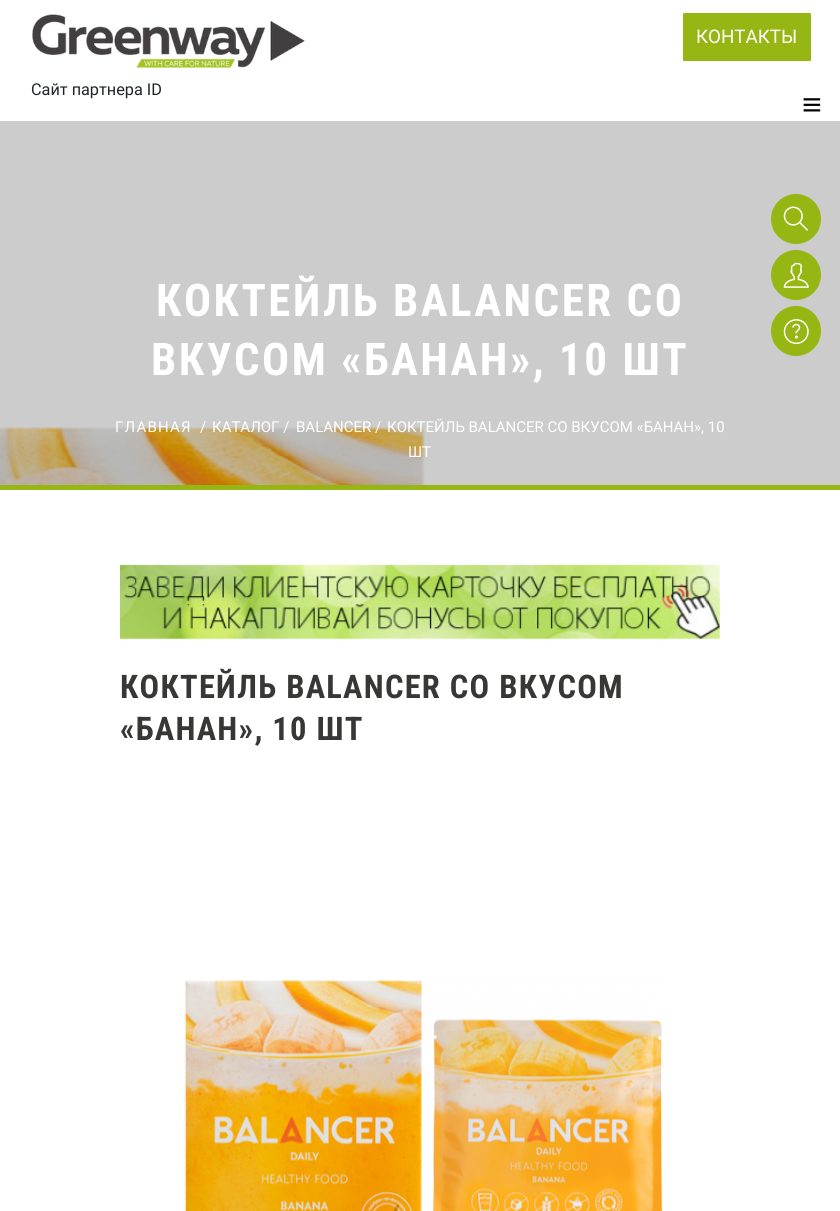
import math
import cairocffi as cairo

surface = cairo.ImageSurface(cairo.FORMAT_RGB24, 840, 1211)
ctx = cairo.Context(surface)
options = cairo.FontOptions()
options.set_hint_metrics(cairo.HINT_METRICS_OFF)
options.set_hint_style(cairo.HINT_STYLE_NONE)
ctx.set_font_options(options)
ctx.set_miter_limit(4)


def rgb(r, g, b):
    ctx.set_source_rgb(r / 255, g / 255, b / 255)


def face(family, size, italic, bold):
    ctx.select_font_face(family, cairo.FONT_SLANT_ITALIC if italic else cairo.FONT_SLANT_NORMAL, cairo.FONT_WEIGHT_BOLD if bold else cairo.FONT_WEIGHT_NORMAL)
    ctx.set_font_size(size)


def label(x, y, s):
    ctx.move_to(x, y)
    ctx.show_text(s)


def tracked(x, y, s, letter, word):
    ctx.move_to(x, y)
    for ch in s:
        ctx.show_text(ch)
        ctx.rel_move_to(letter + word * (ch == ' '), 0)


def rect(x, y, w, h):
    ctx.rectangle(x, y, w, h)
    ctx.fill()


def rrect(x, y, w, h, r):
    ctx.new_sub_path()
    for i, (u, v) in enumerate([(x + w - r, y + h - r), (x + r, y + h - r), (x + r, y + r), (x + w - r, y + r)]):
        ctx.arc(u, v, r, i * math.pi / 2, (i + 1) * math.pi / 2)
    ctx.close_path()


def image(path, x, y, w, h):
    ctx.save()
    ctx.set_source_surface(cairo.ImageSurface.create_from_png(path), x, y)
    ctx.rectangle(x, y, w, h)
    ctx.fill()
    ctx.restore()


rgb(255, 255, 255)
ctx.paint()
rgb(204, 204, 204)
rect(0, 121, 840, 364)
rgb(150, 182, 19)
rrect(683, 13, 128, 48, 1)
ctx.fill()
face('Roboto', 18.75, 0, 0)
rgb(255, 255, 255)
label(696, 43, 'КОНТАКТЫ')
image('image0.png', 803, 98, 18, 14)
image('image1.png', 32, 14, 273, 54)
face('Roboto', 16.25, 0, 0)
rgb(33, 37, 41)
label(31, 95, 'Сайт партнера ID')
rgb(150, 182, 19)
rect(0, 485, 840, 5)
image('image2.png', 0, 427, 425, 58)
face('Roboto Condensed', 45, 0, 1)
rgb(255, 255, 255)
tracked(156, 316, 'КОКТЕЙЛЬ BALANCER СО', 2.5, 0)
tracked(151, 375, 'ВКУСОМ «БАНАН», 10 ШТ', 2.5, 0)
face('Roboto', 15, 0, 0)
tracked(115, 432, 'ГЛАВНАЯ', 1.25, 0)
label(200, 432, '/')
label(212, 432, 'КАТАЛОГ /')
label(296, 432, 'BALANCER /')
label(387, 432, 'КОКТЕЙЛЬ BALANCER СО ВКУСОМ «БАНАН», 10')
label(408, 457, 'ШТ')
rgb(150, 182, 19)
ctx.new_path()
ctx.arc(796, 219, 25, 0, 2 * math.pi)
ctx.fill()
image('image3.png', 783, 206, 26, 25)
ctx.arc(796, 275, 25, 0, 2 * math.pi)
ctx.fill()
image('image4.png', 783, 262, 26, 26)
ctx.arc(796, 331, 25, 0, 2 * math.pi)
ctx.fill()
image('image5.png', 783, 319, 26, 26)
image('image6.png', 120, 564, 600, 76)
face('Roboto Condensed', 32.5, 0, 1)
rgb(55, 55, 54)
tracked(120, 698, 'КОКТЕЙЛЬ BALANCER СО ВКУСОМ', 1.25, 0)
tracked(120, 740, '«БАНАН», 10 ШТ', 1.25, 0)
image('image7.png', 184, 980, 479, 231)
surface.write_to_png('render.png')
